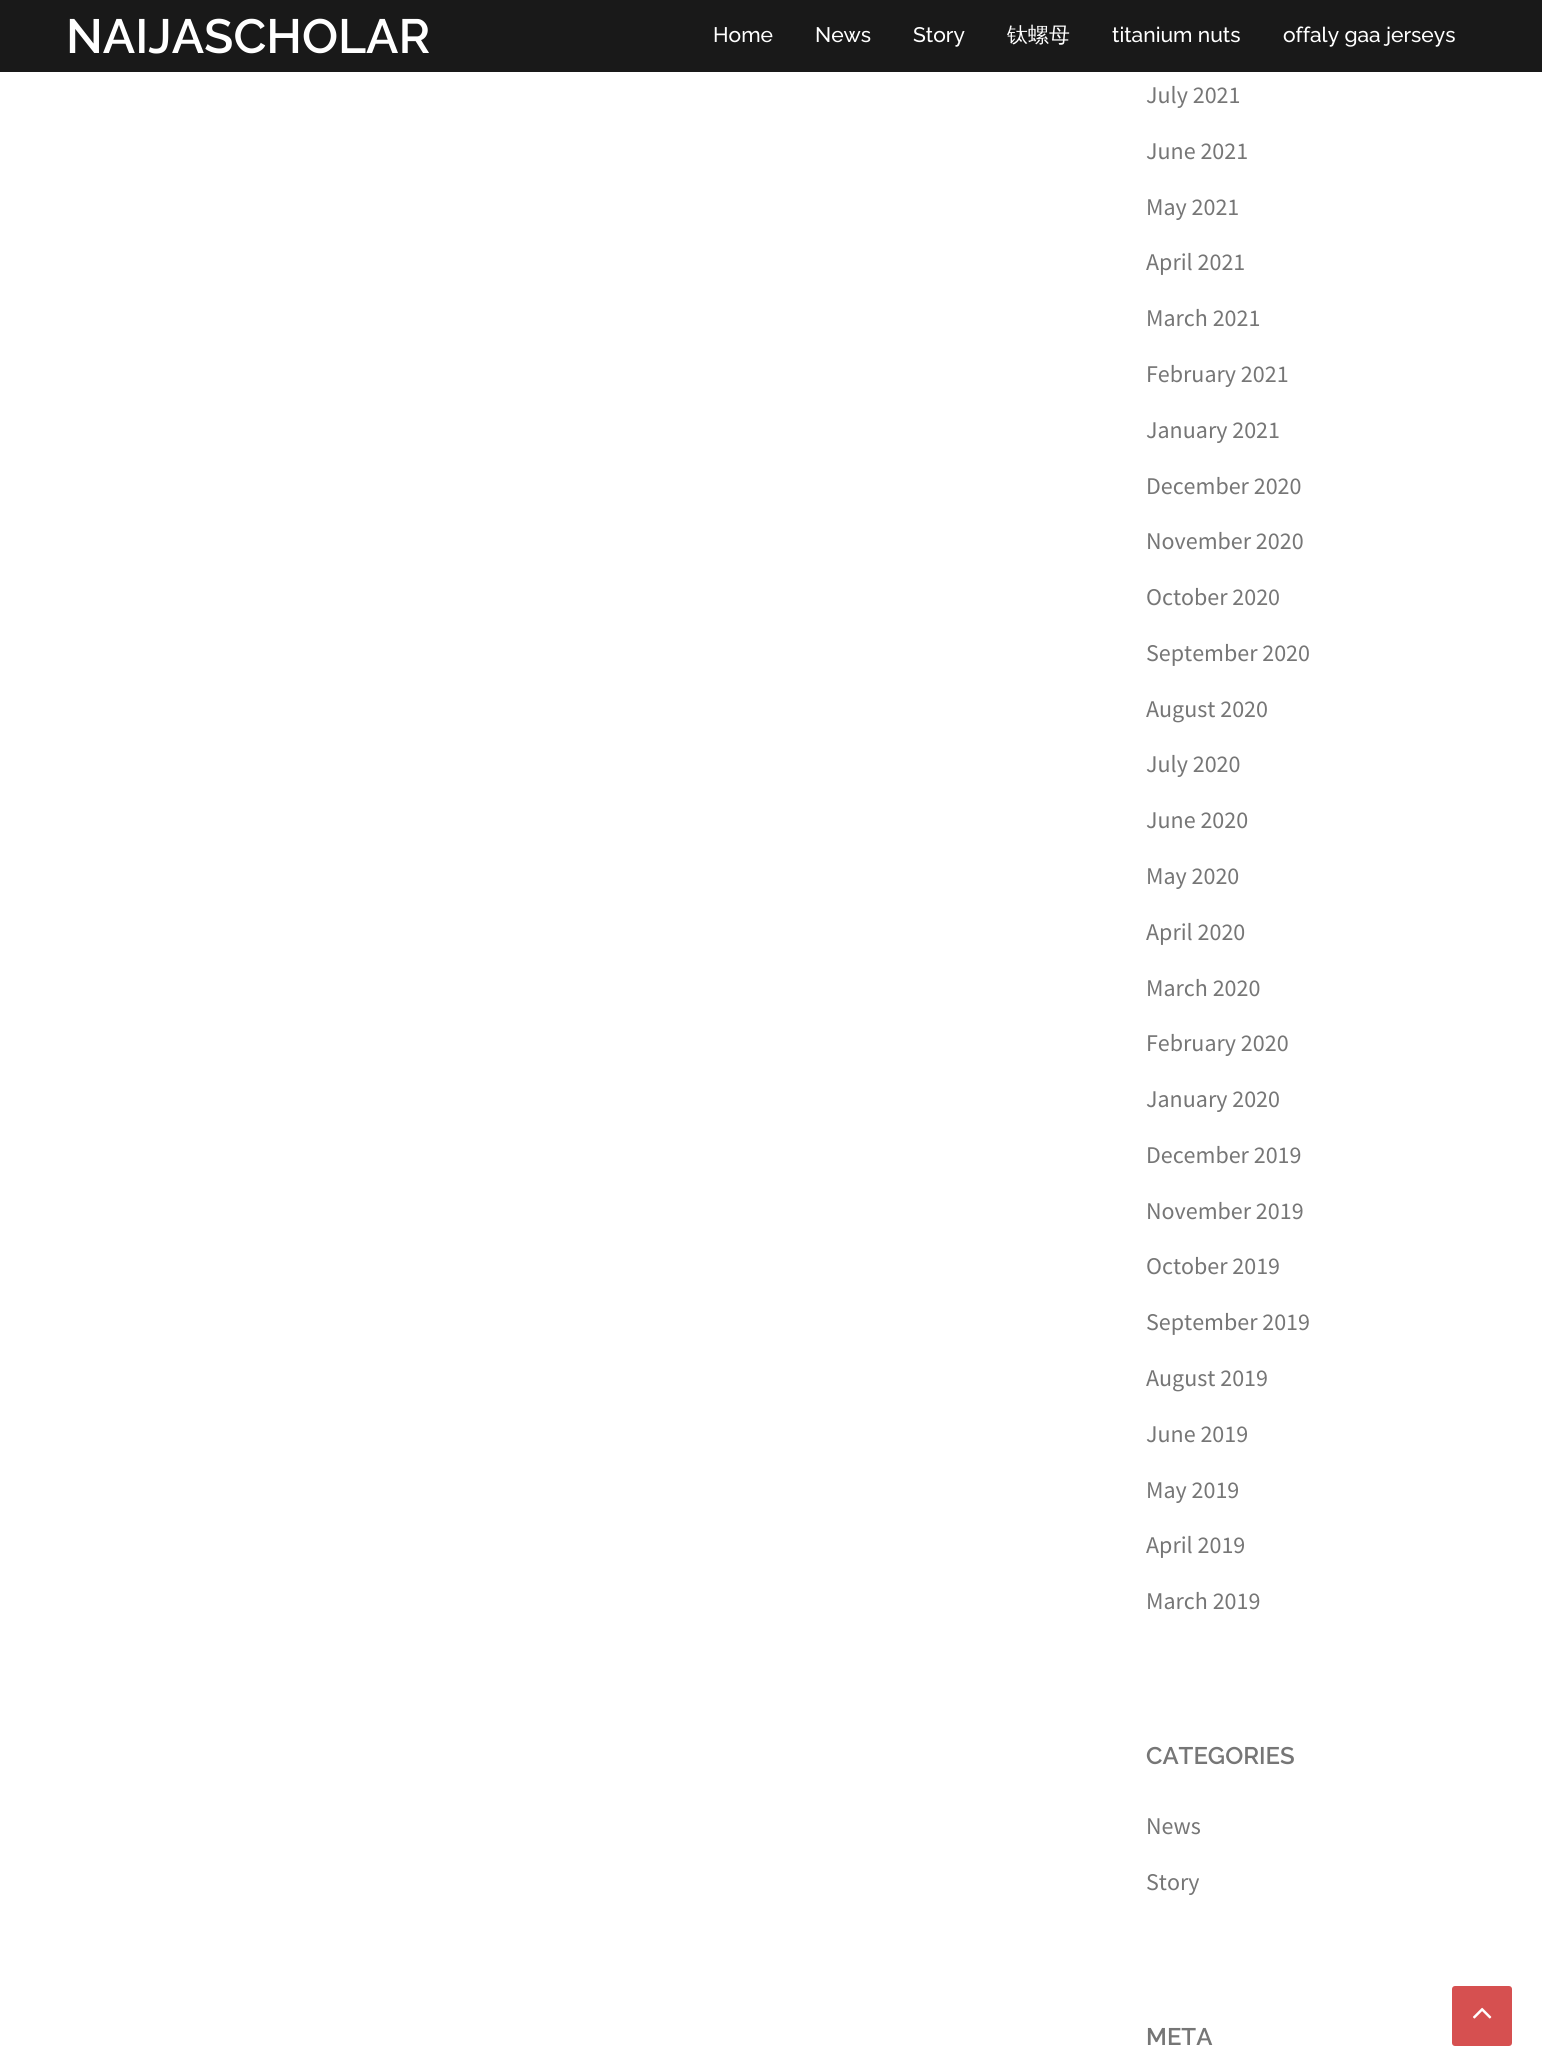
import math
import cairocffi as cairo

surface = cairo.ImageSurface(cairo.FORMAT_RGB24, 1542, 2062)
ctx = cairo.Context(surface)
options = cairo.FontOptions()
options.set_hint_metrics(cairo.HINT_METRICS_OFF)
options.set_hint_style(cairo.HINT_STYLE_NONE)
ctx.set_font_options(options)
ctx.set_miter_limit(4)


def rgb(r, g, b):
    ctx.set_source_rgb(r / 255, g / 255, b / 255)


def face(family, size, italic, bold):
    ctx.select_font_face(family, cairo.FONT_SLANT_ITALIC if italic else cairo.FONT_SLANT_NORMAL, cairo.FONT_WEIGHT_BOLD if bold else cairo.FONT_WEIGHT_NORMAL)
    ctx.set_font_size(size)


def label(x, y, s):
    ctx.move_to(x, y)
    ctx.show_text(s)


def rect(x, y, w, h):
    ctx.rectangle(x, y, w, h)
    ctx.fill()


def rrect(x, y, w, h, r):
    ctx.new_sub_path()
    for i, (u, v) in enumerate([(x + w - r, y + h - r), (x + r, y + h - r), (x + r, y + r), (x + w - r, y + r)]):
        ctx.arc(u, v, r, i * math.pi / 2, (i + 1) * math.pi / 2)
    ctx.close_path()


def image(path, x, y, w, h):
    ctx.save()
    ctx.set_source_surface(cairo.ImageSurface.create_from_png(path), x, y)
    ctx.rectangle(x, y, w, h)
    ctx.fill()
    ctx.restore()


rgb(255, 255, 255)
ctx.paint()
rgb(25, 25, 25)
rect(0, 0, 1542, 72)
face('Raleway SemiBold', 48, 0, 0)
rgb(255, 255, 255)
label(66, 53, 'NAIJASCHOLAR')
face('Raleway Medium', 21, 0, 0)
label(713, 42, 'Home')
label(815, 42, 'News')
label(913, 42, 'Story')
face('WenQuanYi Zen Hei Medium', 21, 0, 0)
label(1007, 42, '钛螺母')
face('Raleway Medium', 21, 0, 0)
label(1112, 42, 'titanium nuts')
label(1283, 42, 'offaly gaa jerseys')
face('Source Sans Pro', 24, 0, 0)
rgb(118, 118, 118)
label(1146, 103, 'July 2021')
label(1146, 159, 'June 2021')
label(1146, 215, 'May 2021')
label(1146, 270, 'April 2021')
label(1146, 326, 'March 2021')
label(1146, 382, 'February 2021')
label(1146, 438, 'January 2021')
label(1146, 494, 'December 2020')
label(1146, 549, 'November 2020')
label(1146, 605, 'October 2020')
label(1146, 661, 'September 2020')
label(1146, 717, 'August 2020')
label(1146, 772, 'July 2020')
label(1146, 828, 'June 2020')
label(1146, 884, 'May 2020')
label(1146, 940, 'April 2020')
label(1146, 996, 'March 2020')
label(1146, 1051, 'February 2020')
label(1146, 1107, 'January 2020')
label(1146, 1163, 'December 2019')
label(1146, 1219, 'November 2019')
label(1146, 1274, 'October 2019')
label(1146, 1330, 'September 2019')
label(1146, 1386, 'August 2019')
label(1146, 1442, 'June 2019')
label(1146, 1498, 'May 2019')
label(1146, 1553, 'April 2019')
label(1146, 1609, 'March 2019')
face('Raleway SemiBold', 24, 0, 0)
label(1146, 1764, 'CATEGORIES')
face('Source Sans Pro', 24, 0, 0)
label(1146, 1834, 'News')
label(1146, 1890, 'Story')
face('Raleway SemiBold', 24, 0, 0)
label(1146, 2045, 'META')
rgb(214, 80, 80)
rrect(1452, 1986, 60, 60, 3)
ctx.fill()
image('image0.png', 1473, 2007, 19, 12)
surface.write_to_png('render.png')
